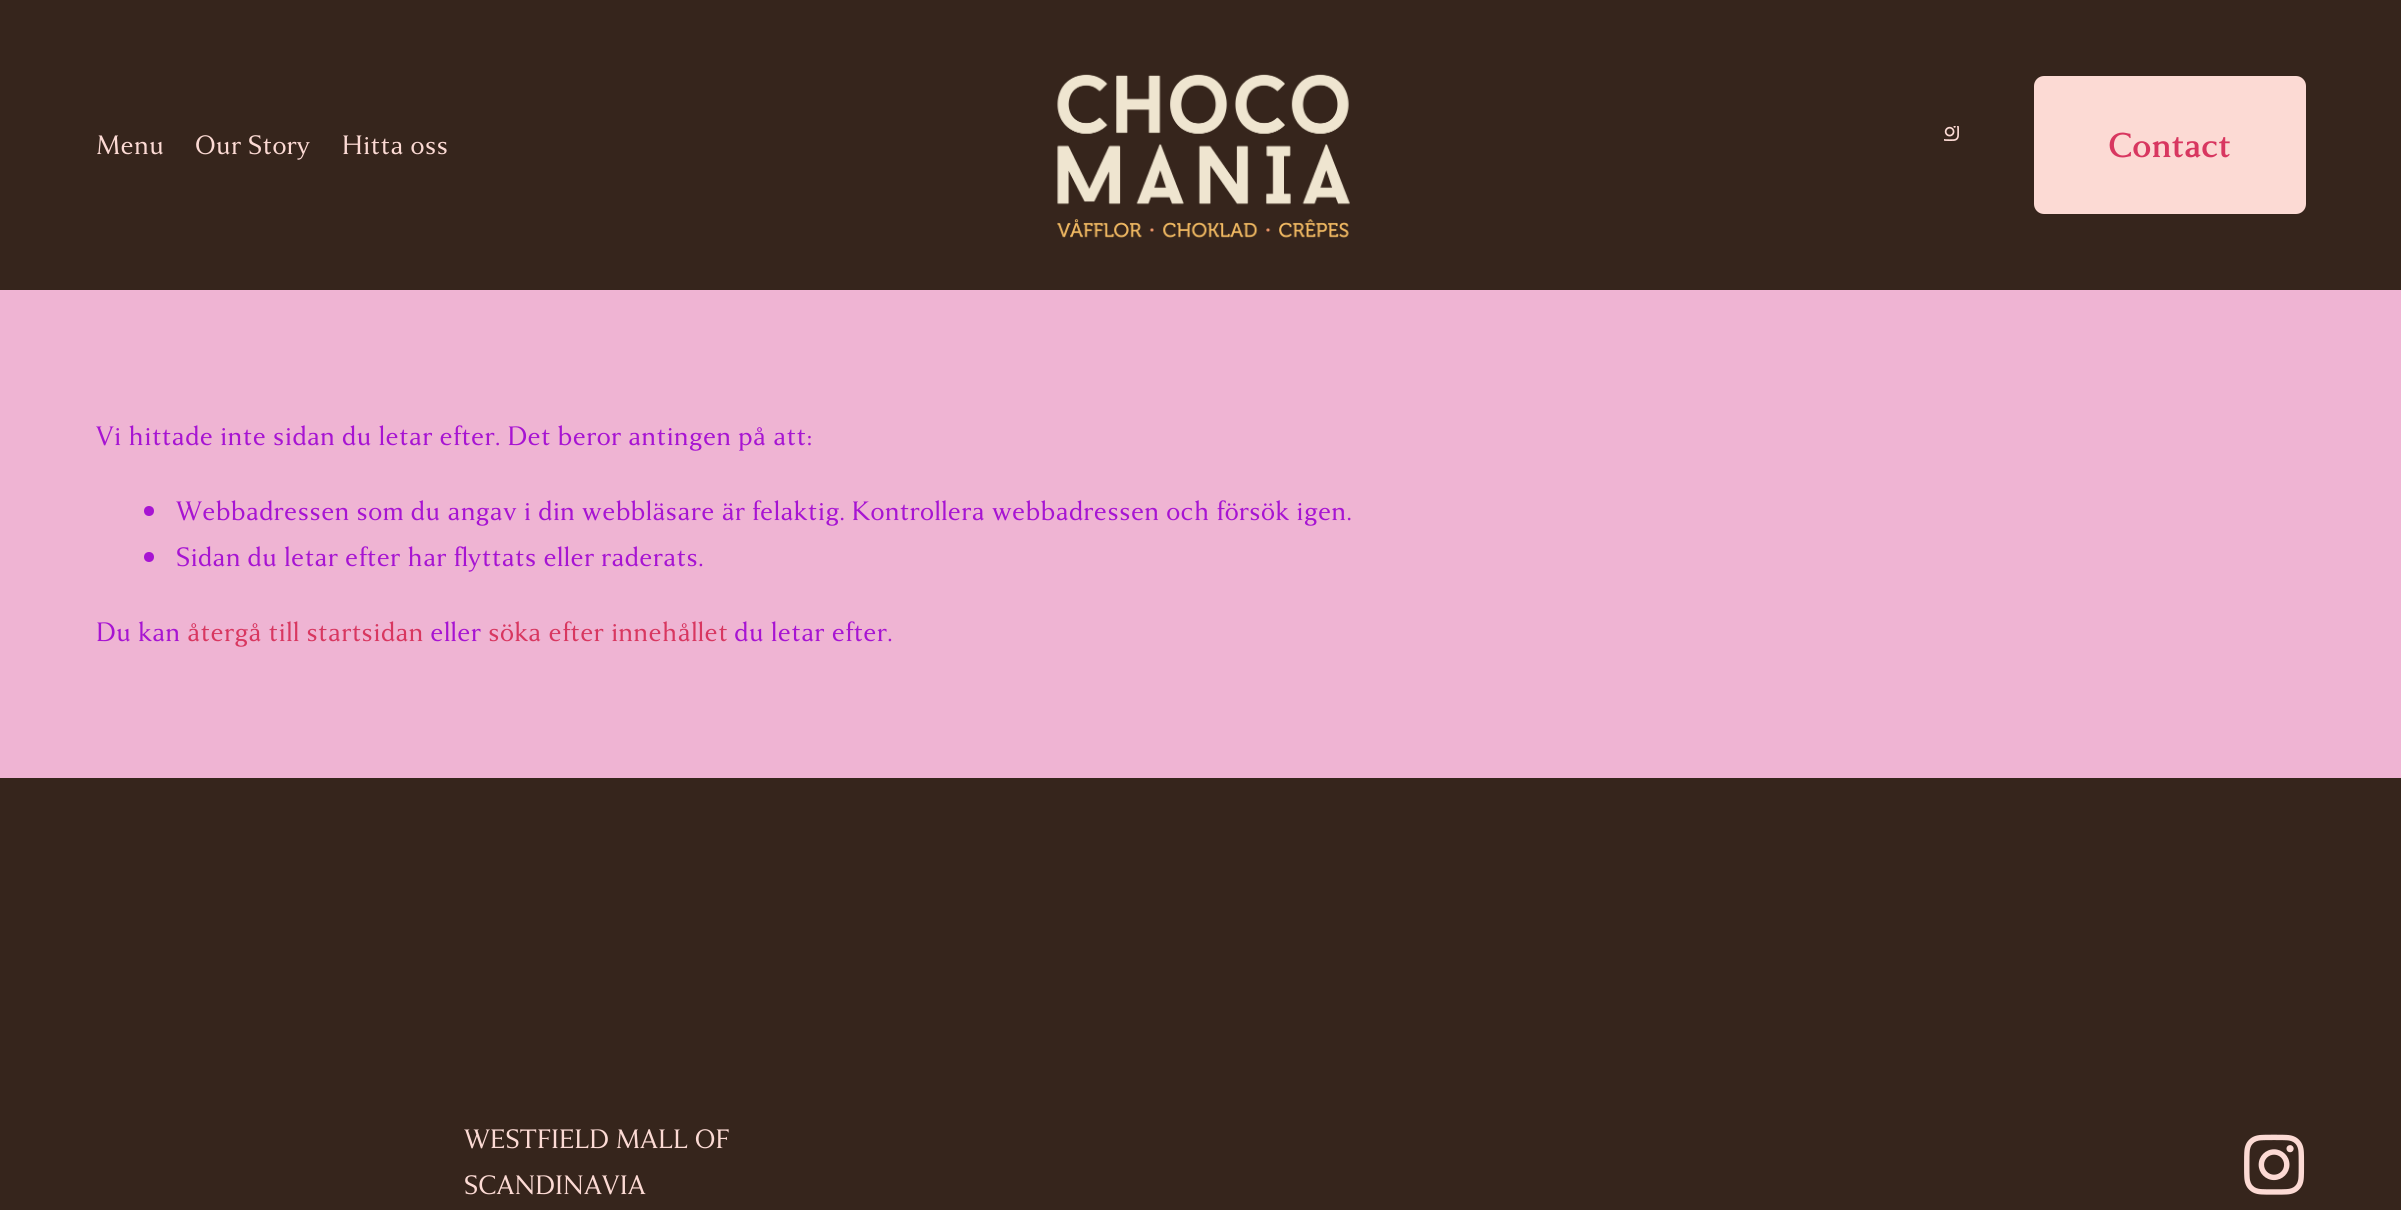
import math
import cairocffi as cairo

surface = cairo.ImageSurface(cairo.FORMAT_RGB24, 2401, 1210)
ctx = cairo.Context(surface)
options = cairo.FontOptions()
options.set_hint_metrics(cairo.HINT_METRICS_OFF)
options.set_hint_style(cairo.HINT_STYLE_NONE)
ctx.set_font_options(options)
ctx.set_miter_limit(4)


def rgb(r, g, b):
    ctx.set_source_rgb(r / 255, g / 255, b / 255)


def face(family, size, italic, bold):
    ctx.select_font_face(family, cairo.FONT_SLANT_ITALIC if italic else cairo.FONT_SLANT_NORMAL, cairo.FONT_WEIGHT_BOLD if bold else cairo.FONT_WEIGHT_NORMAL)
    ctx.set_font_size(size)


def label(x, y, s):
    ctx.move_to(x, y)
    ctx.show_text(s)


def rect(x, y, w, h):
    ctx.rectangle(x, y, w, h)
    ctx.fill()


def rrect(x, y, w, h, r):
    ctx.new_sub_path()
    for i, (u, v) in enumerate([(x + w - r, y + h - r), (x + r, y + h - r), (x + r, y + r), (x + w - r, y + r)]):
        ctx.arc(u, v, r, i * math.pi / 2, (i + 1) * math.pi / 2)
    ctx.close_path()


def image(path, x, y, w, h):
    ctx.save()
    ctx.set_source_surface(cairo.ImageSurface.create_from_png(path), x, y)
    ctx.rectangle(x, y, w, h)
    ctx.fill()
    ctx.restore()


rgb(239, 180, 211)
ctx.paint()
rgb(54, 37, 28)
rect(0, 0, 2401, 290)
face('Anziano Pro', 28.9, 0, 0)
rgb(252, 218, 212)
label(96, 154, 'Menu')
label(195, 154, 'Our Story')
label(342, 154, 'Hitta oss')
image('image0.png', 1057, 74, 293, 164)
image('image1.png', 1944, 126, 15, 15)
rrect(2034, 76, 272, 138, 10)
ctx.fill()
face('Anziano Pro', 37.5, 0, 1)
rgb(216, 55, 96)
label(2108, 157, 'Contact')
face('Anziano Pro', 28.9, 0, 0)
rgb(167, 20, 210)
label(96, 445, 'Vi hittade inte sidan du letar efter. Det beror antingen på att:')
ctx.new_path()
ctx.arc(149, 511, 5, 0, 2 * math.pi)
ctx.fill()
label(176, 520, 'Webbadressen som du angav i din webbläsare är felaktig. Kontrollera webbadressen och försök igen.')
ctx.new_path()
ctx.arc(149, 557, 5, 0, 2 * math.pi)
ctx.fill()
label(176, 566, 'Sidan du letar efter har flyttats eller raderats.')
label(96, 641, 'Du kan')
rgb(216, 55, 96)
label(187, 641, 'återgå till startsidan')
rgb(167, 20, 210)
label(430, 641, 'eller')
rgb(216, 55, 96)
label(488, 641, 'söka efter innehållet')
rgb(167, 20, 210)
label(734, 641, 'du letar efter.')
rgb(54, 37, 28)
rect(0, 778, 2401, 432)
rgb(252, 218, 212)
label(464, 1148, 'WESTFIELD MALL OF')
label(464, 1194, 'SCANDINAVIA')
image('image2.png', 2244, 1134, 61, 61)
surface.write_to_png('render.png')
